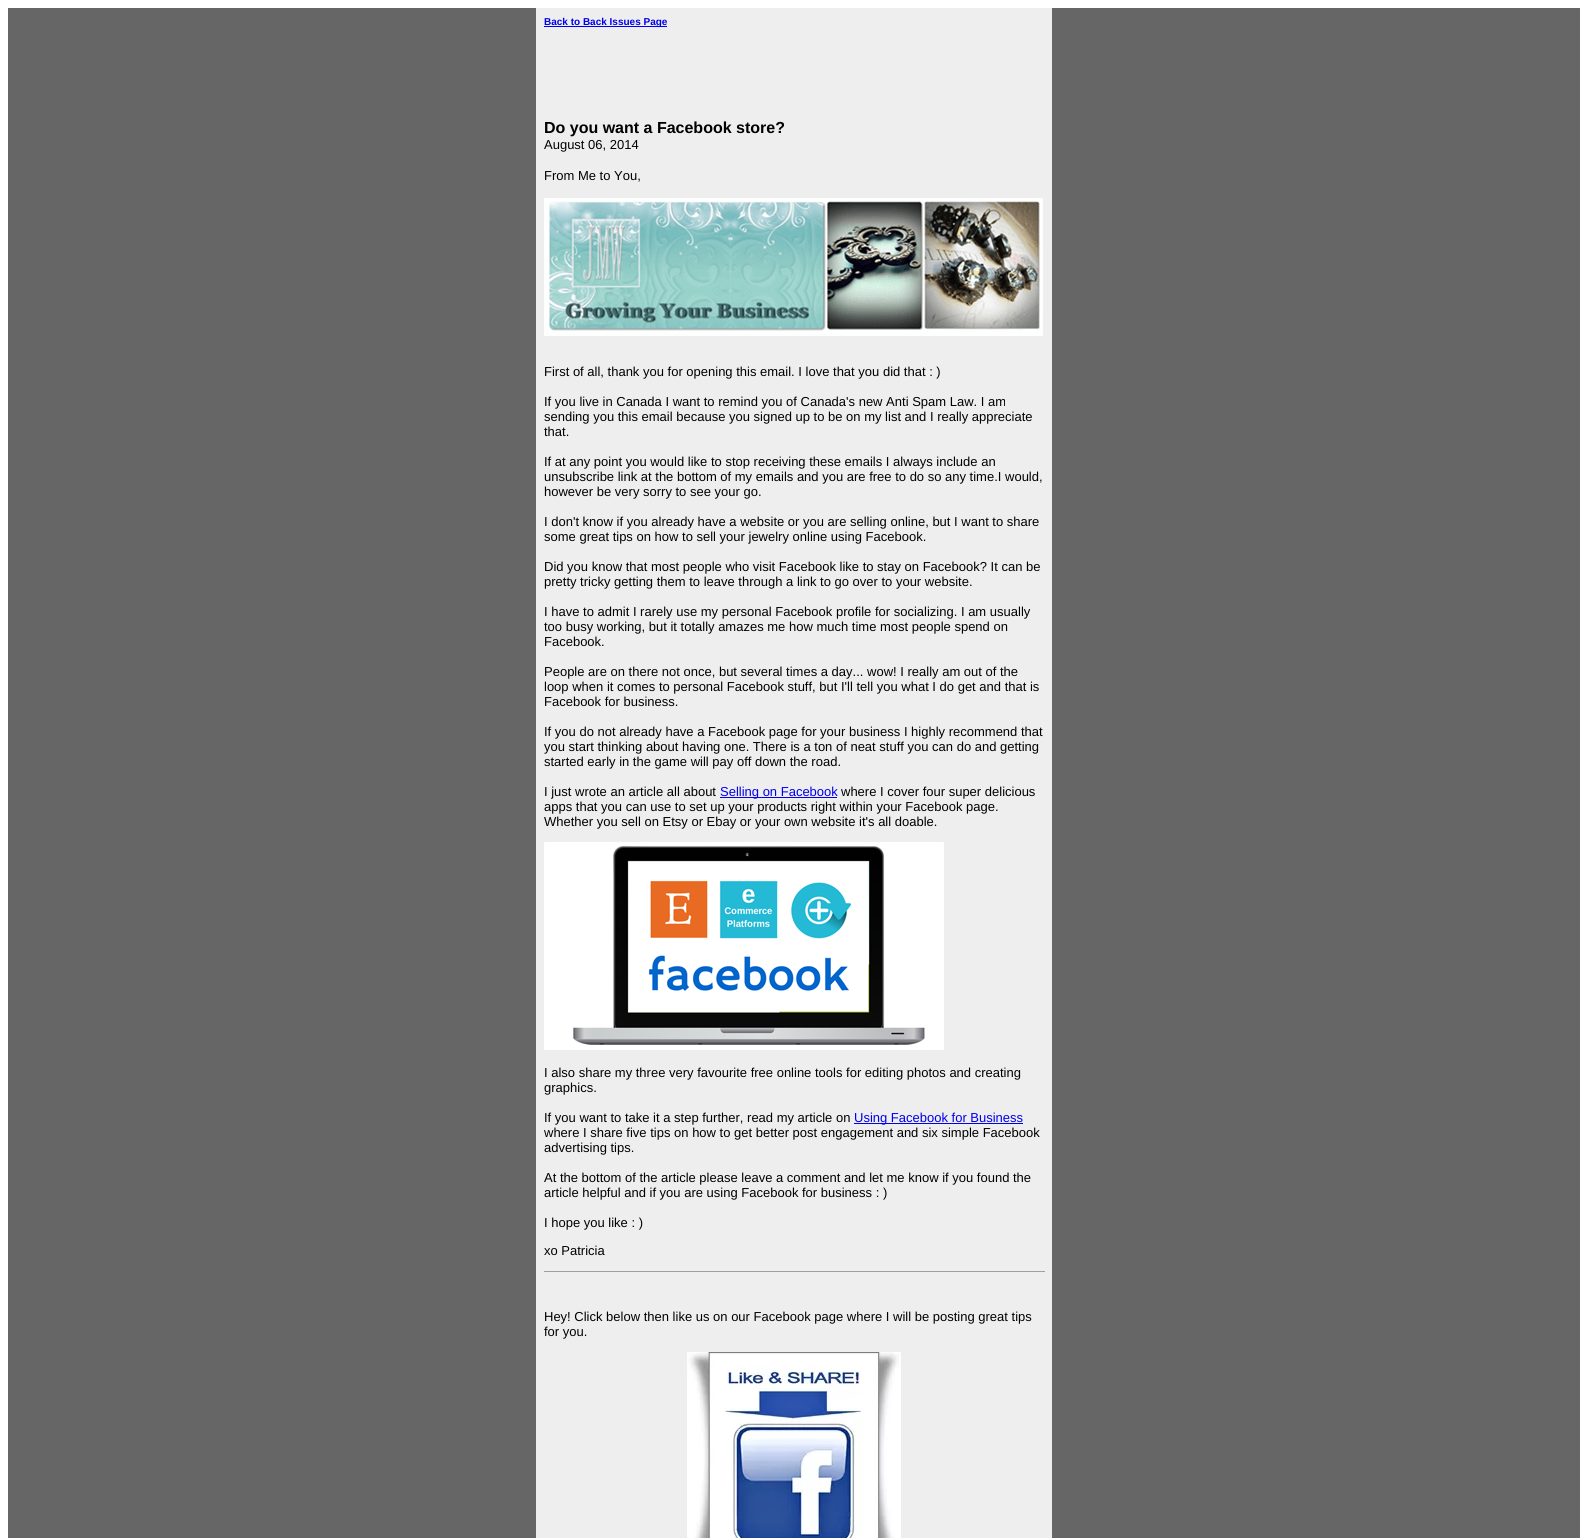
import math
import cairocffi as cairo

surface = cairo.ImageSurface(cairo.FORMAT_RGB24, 1588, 1538)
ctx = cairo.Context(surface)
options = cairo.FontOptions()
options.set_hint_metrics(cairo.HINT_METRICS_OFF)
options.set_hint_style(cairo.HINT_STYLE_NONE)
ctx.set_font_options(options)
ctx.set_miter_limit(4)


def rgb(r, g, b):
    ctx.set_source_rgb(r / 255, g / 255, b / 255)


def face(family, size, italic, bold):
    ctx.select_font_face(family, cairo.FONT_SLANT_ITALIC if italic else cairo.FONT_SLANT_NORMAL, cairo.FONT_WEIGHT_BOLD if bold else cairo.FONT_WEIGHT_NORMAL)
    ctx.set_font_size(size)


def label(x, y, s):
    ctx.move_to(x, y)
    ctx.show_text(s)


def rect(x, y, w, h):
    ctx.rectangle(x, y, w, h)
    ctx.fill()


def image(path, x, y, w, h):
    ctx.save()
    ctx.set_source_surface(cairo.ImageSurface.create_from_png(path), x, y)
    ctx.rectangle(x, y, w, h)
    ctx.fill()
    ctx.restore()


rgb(255, 255, 255)
ctx.paint()
rgb(102, 102, 102)
rect(8, 8, 1572, 1530)
rgb(238, 238, 238)
rect(536, 8, 516, 1530)
rgb(0, 0, 238)
rect(544, 26, 123, 1)
face('Liberation Sans', 10, 0, 1)
label(544, 25, 'Back to Back Issues Page')
face('Liberation Sans', 16, 0, 1)
rgb(0, 0, 0)
label(544, 133, 'Do you want a Facebook store?')
face('Liberation Sans', 13, 0, 0)
label(544, 149, 'August 06, 2014')
label(544, 180, 'From Me to You,')
image('image0.png', 544, 198, 499, 138)
label(544, 376, 'First of all, thank you for opening this email. I love that you did that : )')
label(544, 406, 'If you live in Canada I want to remind you of Canada\'s new Anti Spam Law. I am')
label(544, 421, 'sending you this email because you signed up to be on my list and I really appreciate')
label(544, 436, 'that.')
label(544, 466, 'If at any point you would like to stop receiving these emails I always include an')
label(544, 481, 'unsubscribe link at the bottom of my emails and you are free to do so any time.I would,')
label(544, 496, 'however be very sorry to see your go.')
label(544, 526, 'I don\'t know if you already have a website or you are selling online, but I want to share')
label(544, 541, 'some great tips on how to sell your jewelry online using Facebook.')
label(544, 571, 'Did you know that most people who visit Facebook like to stay on Facebook? It can be')
label(544, 586, 'pretty tricky getting them to leave through a link to go over to your website.')
label(544, 616, 'I have to admit I rarely use my personal Facebook profile for socializing. I am usually')
label(544, 631, 'too busy working, but it totally amazes me how much time most people spend on')
label(544, 646, 'Facebook.')
label(544, 676, 'People are on there not once, but several times a day... wow! I really am out of the')
label(544, 691, 'loop when it comes to personal Facebook stuff, but I\'ll tell you what I do get and that is')
label(544, 706, 'Facebook for business.')
label(544, 736, 'If you do not already have a Facebook page for your business I highly recommend that')
label(544, 751, 'you start thinking about having one. There is a ton of neat stuff you can do and getting')
label(544, 766, 'started early in the game will pay off down the road.')
label(544, 796, 'I just wrote an article all about')
rgb(0, 0, 238)
rect(720, 797, 117, 1)
label(720, 796, 'Selling on Facebook')
rgb(0, 0, 0)
label(841, 796, 'where I cover four super delicious')
label(544, 811, 'apps that you can use to set up your products right within your Facebook page.')
label(544, 826, 'Whether you sell on Etsy or Ebay or your own website it\'s all doable.')
image('image1.png', 544, 842, 400, 208)
label(544, 1077, 'I also share my three very favourite free online tools for editing photos and creating')
label(544, 1092, 'graphics.')
label(544, 1122, 'If you want to take it a step further, read my article on')
rgb(0, 0, 238)
rect(854, 1123, 169, 1)
label(854, 1122, 'Using Facebook for Business')
rgb(0, 0, 0)
label(544, 1137, 'where I share five tips on how to get better post engagement and six simple Facebook')
label(544, 1152, 'advertising tips.')
label(544, 1182, 'At the bottom of the article please leave a comment and let me know if you found the')
label(544, 1197, 'article helpful and if you are using Facebook for business : )')
label(544, 1227, 'I hope you like : )')
label(544, 1255, 'xo Patricia')
rgb(159, 159, 159)
rect(544, 1271, 502, 1)
rgb(238, 238, 238)
rect(1045, 1271, 1, 1)
rgb(0, 0, 0)
label(544, 1321, 'Hey! Click below then like us on our Facebook page where I will be posting great tips')
label(544, 1336, 'for you.')
image('image2.png', 687, 1352, 214, 186)
surface.write_to_png('render.png')
